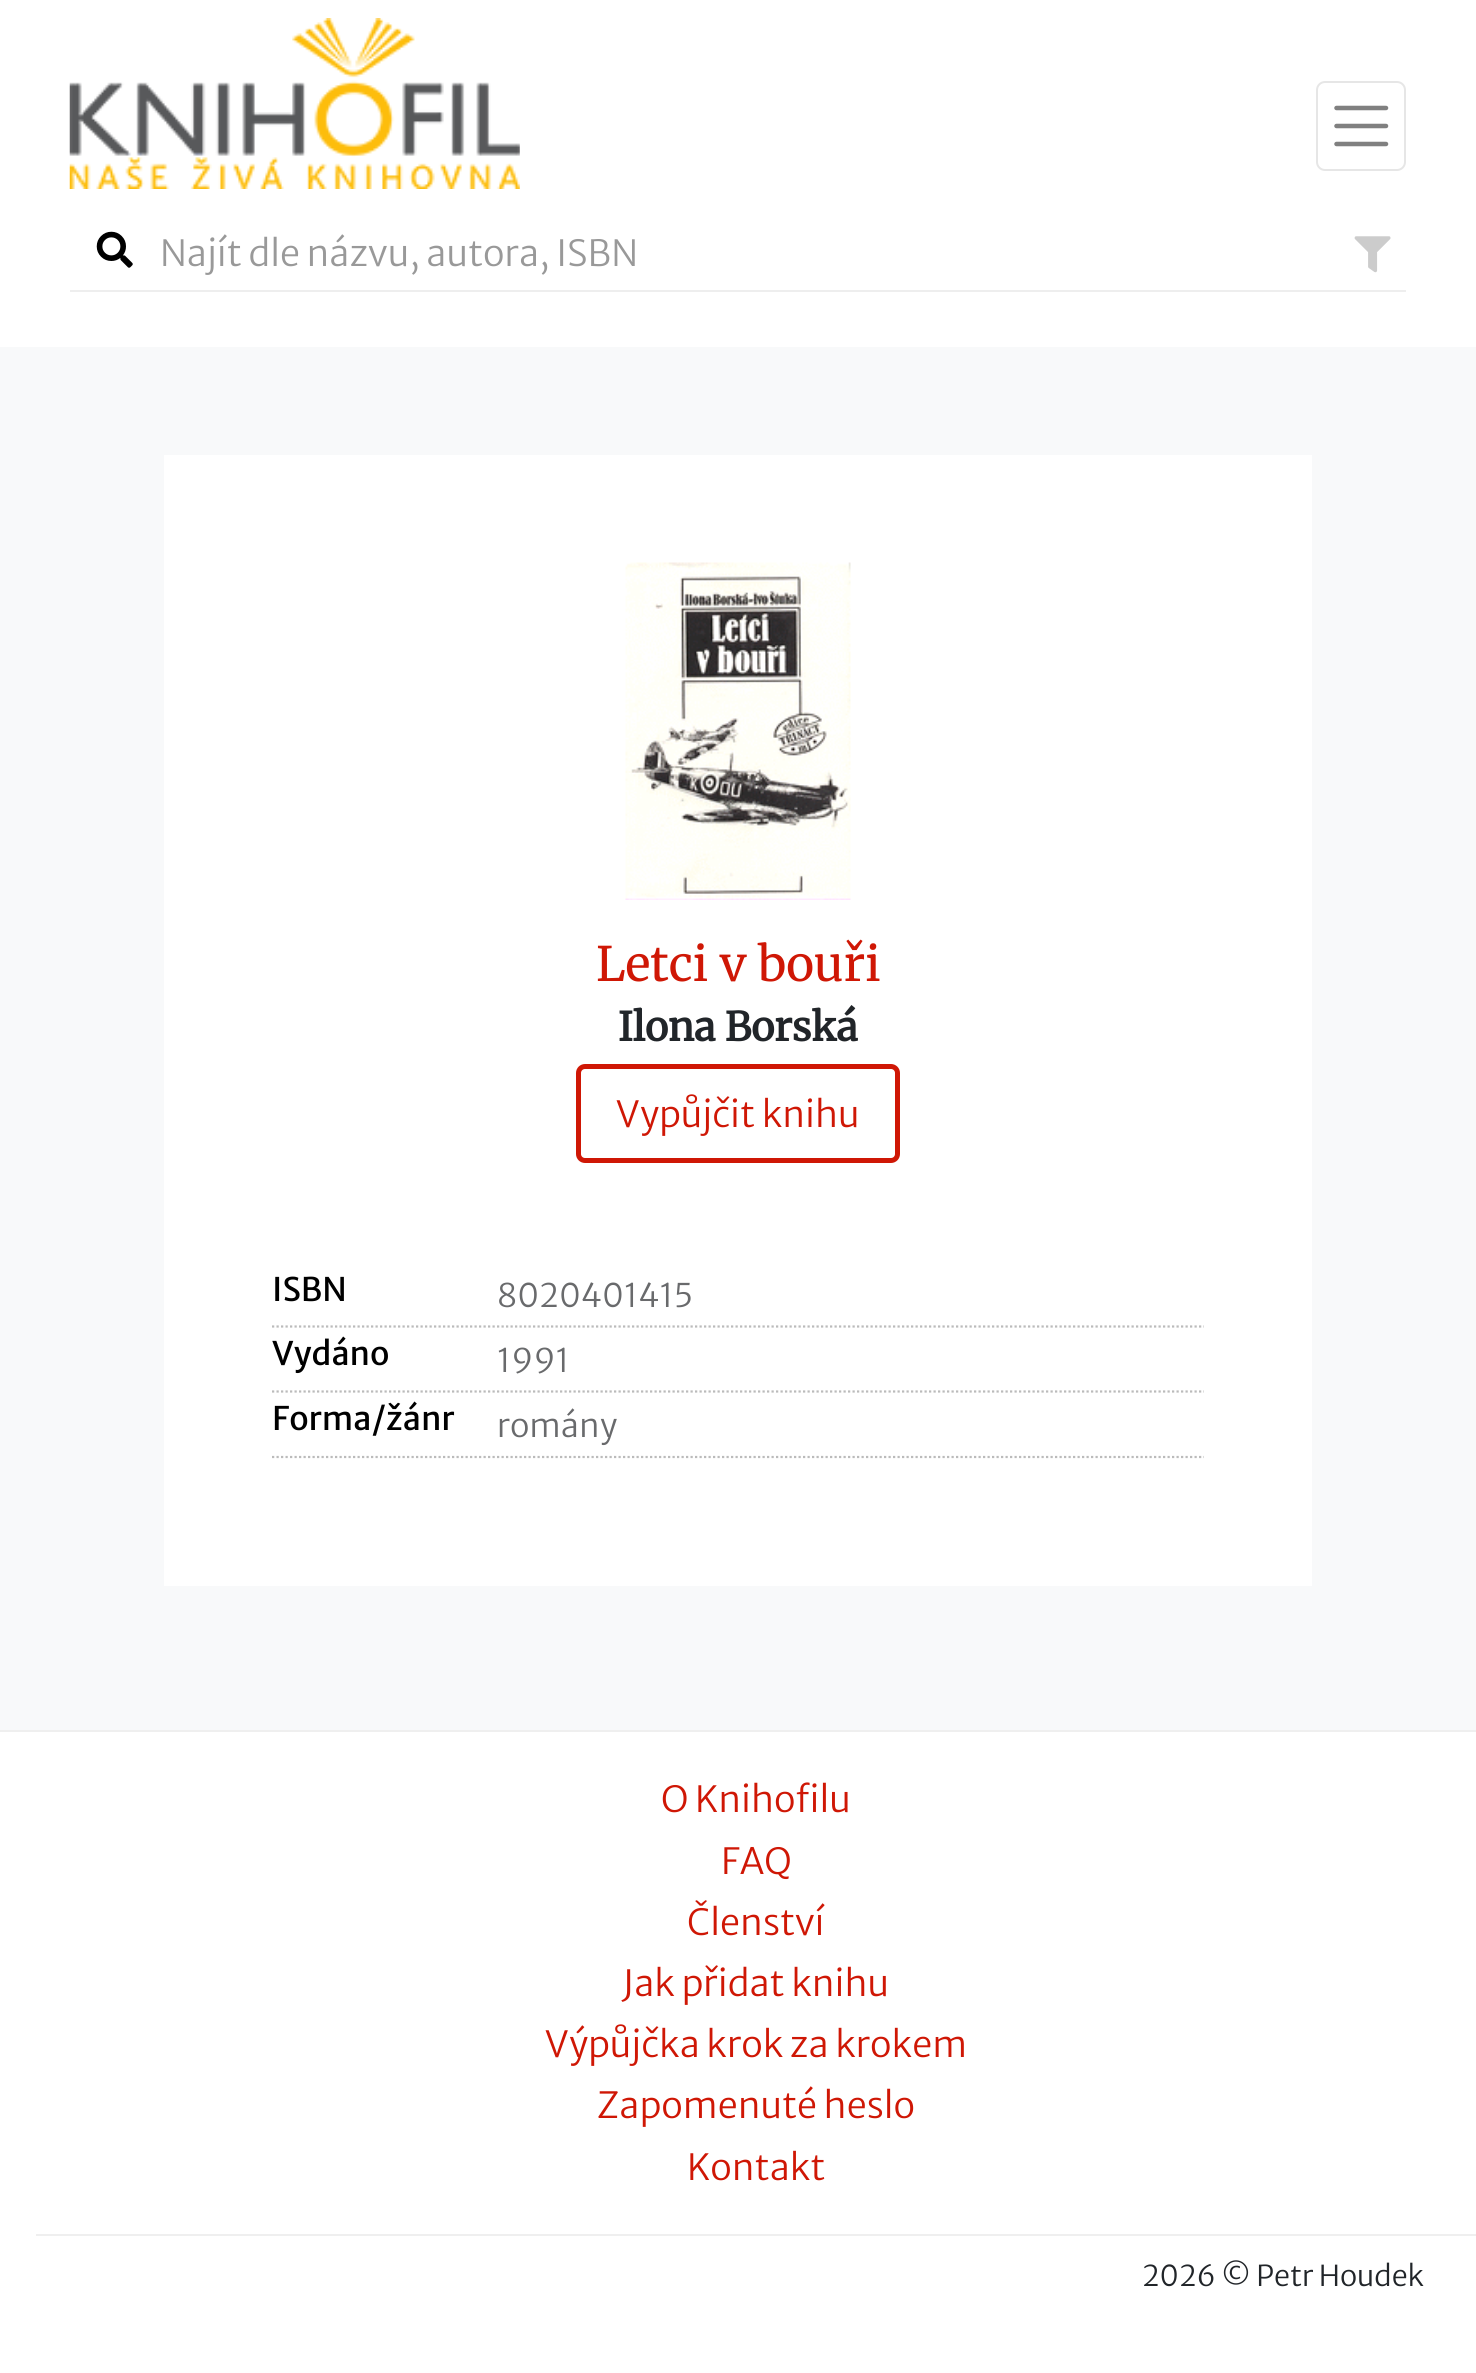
import math
import cairocffi as cairo

surface = cairo.ImageSurface(cairo.FORMAT_RGB24, 1476, 2373)
ctx = cairo.Context(surface)
options = cairo.FontOptions()
options.set_hint_metrics(cairo.HINT_METRICS_OFF)
options.set_hint_style(cairo.HINT_STYLE_NONE)
ctx.set_font_options(options)
ctx.set_miter_limit(4)


def rgb(r, g, b):
    ctx.set_source_rgb(r / 255, g / 255, b / 255)


def face(family, size, italic, bold):
    ctx.select_font_face(family, cairo.FONT_SLANT_ITALIC if italic else cairo.FONT_SLANT_NORMAL, cairo.FONT_WEIGHT_BOLD if bold else cairo.FONT_WEIGHT_NORMAL)
    ctx.set_font_size(size)


def label(x, y, s):
    ctx.move_to(x, y)
    ctx.show_text(s)


def rect(x, y, w, h):
    ctx.rectangle(x, y, w, h)
    ctx.fill()


def rrect(x, y, w, h, r):
    ctx.new_sub_path()
    for i, (u, v) in enumerate([(x + w - r, y + h - r), (x + r, y + h - r), (x + r, y + r), (x + w - r, y + r)]):
        ctx.arc(u, v, r, i * math.pi / 2, (i + 1) * math.pi / 2)
    ctx.close_path()


def image(path, x, y, w, h):
    ctx.save()
    ctx.set_source_surface(cairo.ImageSurface.create_from_png(path), x, y)
    ctx.rectangle(x, y, w, h)
    ctx.fill()
    ctx.restore()


rgb(255, 255, 255)
ctx.paint()
image('image0.png', 69, 18, 451, 171)
rrect(1317, 82, 88, 88, 8)
rgb(230, 230, 230)
ctx.stroke()
ctx.new_path()
ctx.move_to(1336.5, 108)
ctx.line_to(1386, 108)
ctx.move_to(1336.5, 126)
ctx.line_to(1386, 126)
ctx.move_to(1336.5, 144)
ctx.line_to(1386, 144)
rgb(128, 128, 128)
ctx.set_line_width(4.5)
ctx.set_line_cap(cairo.LINE_CAP_ROUND)
ctx.stroke()
image('image1.png', 96, 231, 37, 37)
rgb(238, 238, 238)
rect(70, 290, 1336, 2)
face('Merriweather Sans Light', 36, 0, 0)
rgb(153, 153, 153)
label(160, 266, 'Najít dle názvu, autora, ISBN')
image('image2.png', 1354, 236, 37, 37)
rgb(248, 249, 250)
rect(0, 347, 1476, 1383)
rgb(255, 255, 255)
rect(164, 455, 1148, 1131)
image('image3.png', 625, 562, 226, 338)
face('Merriweather', 47.5, 0, 0)
rgb(207, 23, 5)
label(596, 981, 'Letci v bouři')
face('Merriweather', 39.5, 0, 1)
rgb(33, 37, 41)
label(618, 1041, 'Ilona Borská')
rrect(578.5, 1066.5, 319, 94, 6.5)
rgb(207, 23, 5)
ctx.set_line_width(5)
ctx.set_line_cap(cairo.LINE_CAP_BUTT)
ctx.stroke()
face('Merriweather Sans Light', 36, 0, 0)
label(616, 1127, 'Vypůjčit knihu')
ctx.new_path()
ctx.move_to(272, 1326.5)
ctx.line_to(1204, 1326.5)
rgb(187, 187, 187)
ctx.set_line_width(2.2)
ctx.set_dash([2.25, 2.25])
ctx.stroke()
face('Merriweather Sans', 32.5, 0, 0)
rgb(0, 0, 0)
label(272, 1301, 'ISBN')
face('Merriweather Sans Light', 32.5, 0, 0)
rgb(105, 106, 108)
label(497, 1307, '8020401415')
ctx.new_path()
ctx.move_to(272, 1391.5)
ctx.line_to(1204, 1391.5)
rgb(187, 187, 187)
ctx.stroke()
face('Merriweather Sans', 32.5, 0, 0)
rgb(0, 0, 0)
label(272, 1365, 'Vydáno')
face('Merriweather Sans Light', 32.5, 0, 0)
rgb(105, 106, 108)
label(497, 1372, '1991')
ctx.new_path()
ctx.move_to(272, 1457)
ctx.line_to(1204, 1457)
rgb(187, 187, 187)
ctx.stroke()
face('Merriweather Sans', 32.5, 0, 0)
rgb(0, 0, 0)
label(272, 1430, 'Forma/žánr')
face('Merriweather Sans Light', 32.5, 0, 0)
rgb(105, 106, 108)
label(497, 1437, 'romány')
rgb(239, 239, 239)
rect(0, 1730, 1476, 2)
face('Merriweather Sans Light', 36, 0, 0)
rgb(207, 23, 5)
label(661, 1812, 'O Knihofilu')
label(721, 1874, 'FAQ')
label(687, 1935, 'Členství')
label(622, 1996, 'Jak přidat knihu')
label(545, 2057, 'Výpůjčka krok za krokem')
label(597, 2118, 'Zapomenuté heslo')
label(687, 2180, 'Kontakt')
rgb(239, 239, 239)
rect(36, 2234, 1440, 2)
face('Merriweather Sans Light', 28.75, 0, 0)
rgb(33, 37, 41)
label(1142, 2286, '2026 © Petr Houdek')
surface.write_to_png('render.png')
